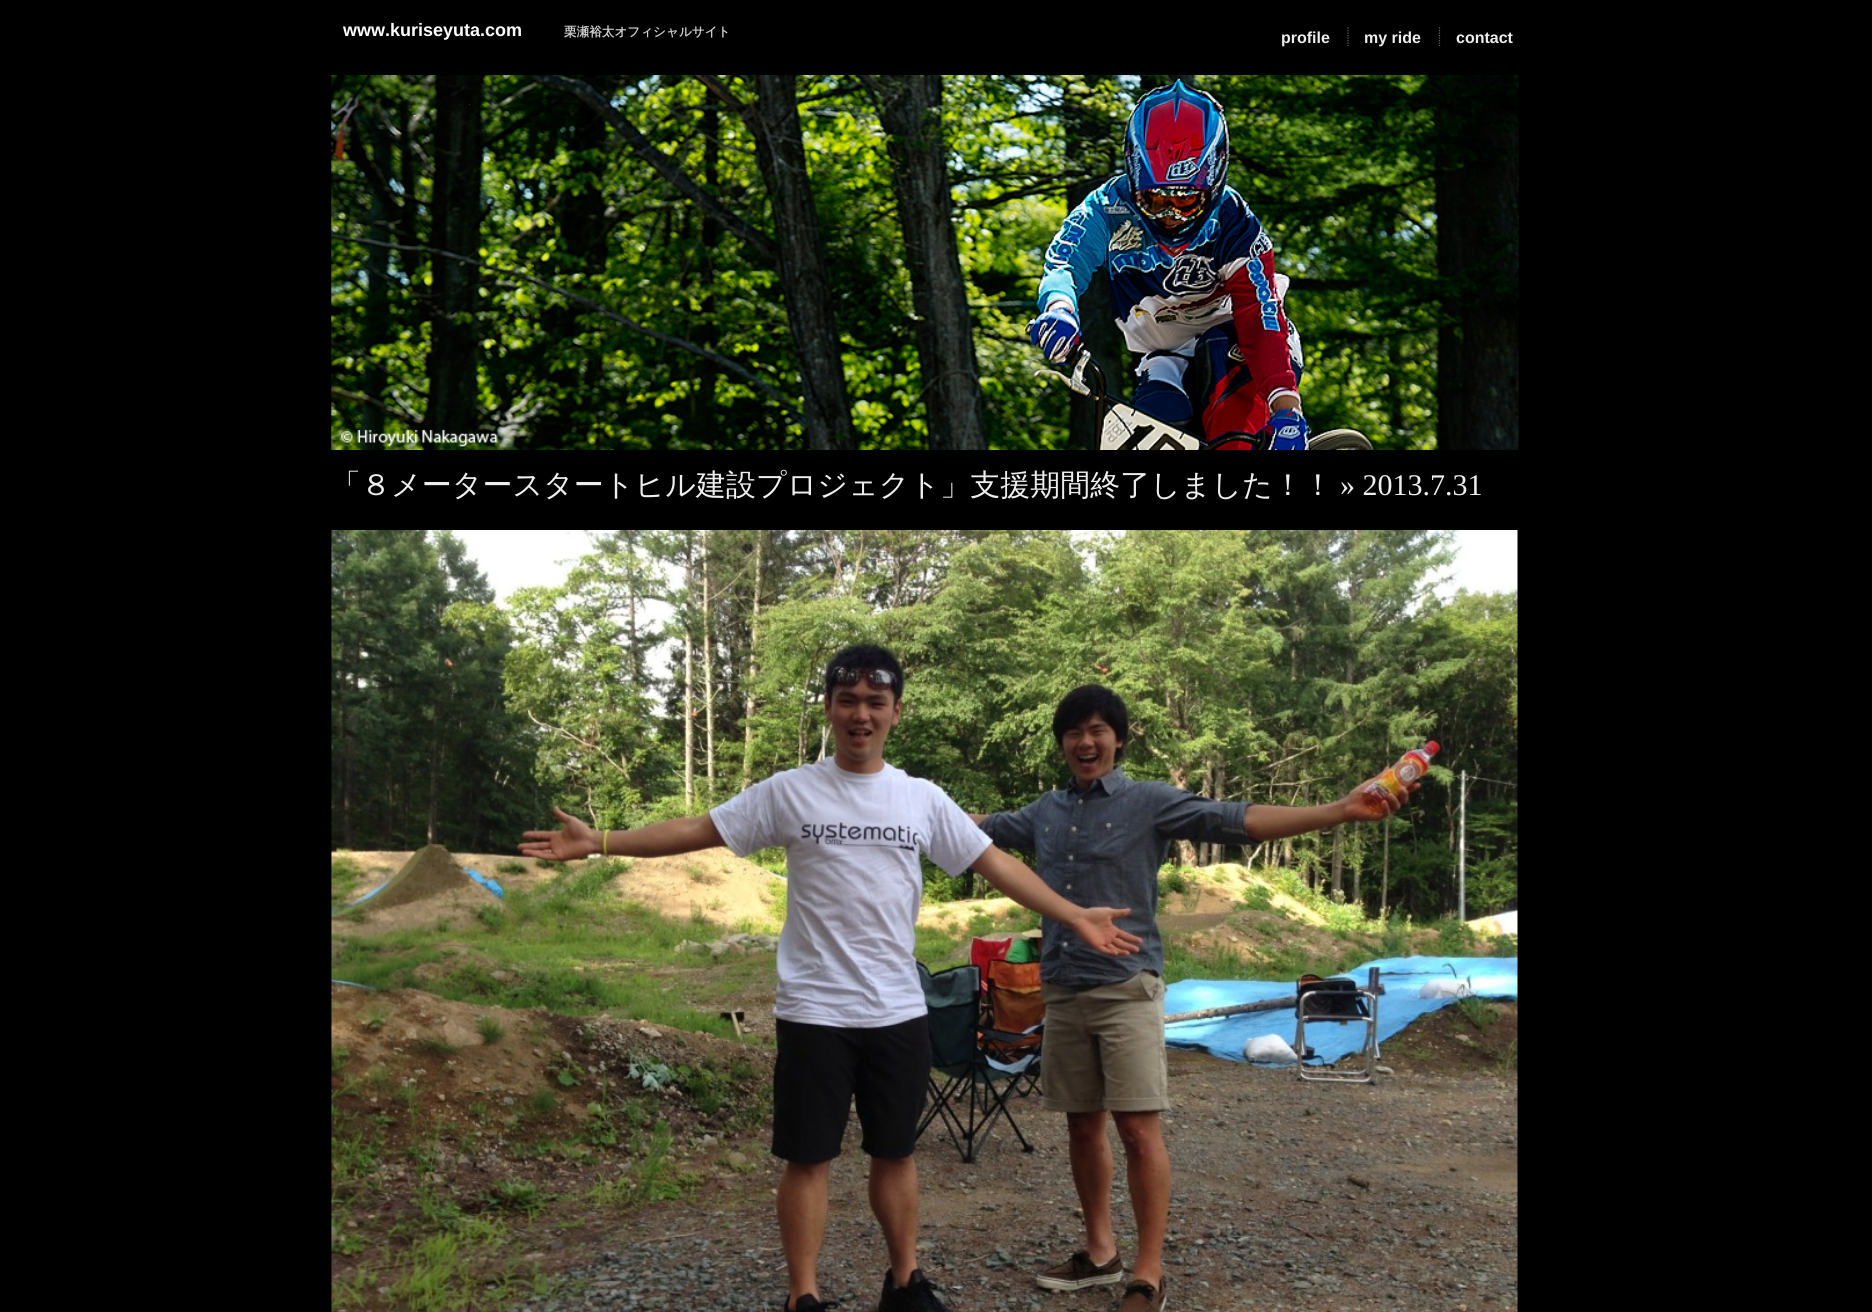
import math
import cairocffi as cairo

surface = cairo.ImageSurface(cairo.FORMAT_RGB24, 1872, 1312)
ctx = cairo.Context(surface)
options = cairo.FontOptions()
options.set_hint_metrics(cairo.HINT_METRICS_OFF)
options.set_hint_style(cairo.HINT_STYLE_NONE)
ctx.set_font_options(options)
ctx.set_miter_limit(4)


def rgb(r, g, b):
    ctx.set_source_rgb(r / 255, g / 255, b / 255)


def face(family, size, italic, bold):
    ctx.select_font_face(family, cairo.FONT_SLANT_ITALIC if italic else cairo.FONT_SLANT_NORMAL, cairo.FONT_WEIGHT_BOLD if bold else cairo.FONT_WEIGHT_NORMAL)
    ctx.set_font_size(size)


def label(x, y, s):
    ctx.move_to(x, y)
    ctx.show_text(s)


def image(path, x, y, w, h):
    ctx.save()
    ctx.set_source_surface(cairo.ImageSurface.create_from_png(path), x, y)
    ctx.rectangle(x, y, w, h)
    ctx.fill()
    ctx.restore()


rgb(0, 0, 0)
ctx.paint()
face('Liberation Sans', 18, 0, 1)
rgb(255, 255, 255)
label(343, 36, 'www.kuriseyuta.com')
face('WenQuanYi Zen Hei', 12.6, 0, 1)
rgb(204, 204, 204)
label(564, 36, '栗瀬裕太オフィシャルサイト')
ctx.new_path()
ctx.move_to(1348, 27.5)
ctx.line_to(1348, 46)
rgb(102, 102, 102)
ctx.set_line_width(1.2)
ctx.set_dash([1.25, 1.25])
ctx.stroke()
face('Liberation Sans', 16, 0, 1)
rgb(238, 238, 238)
label(1281, 43, 'profile')
ctx.new_path()
ctx.move_to(1439.5, 27.5)
ctx.line_to(1439.5, 46)
rgb(102, 102, 102)
ctx.stroke()
rgb(238, 238, 238)
label(1364, 43, 'my ride')
label(1456, 43, 'contact')
image('image0.png', 331, 75, 1188, 375)
face('WenQuanYi Zen Hei Medium', 30, 0, 0)
label(331, 495, '「８メータースタートヒル建設プロジェクト」支援期間終了しました！！')
face('Liberation Serif', 30, 0, 0)
label(1340, 495, '» 2013.7.31')
image('image1.png', 331, 530, 1187, 782)
surface.write_to_png('render.png')
